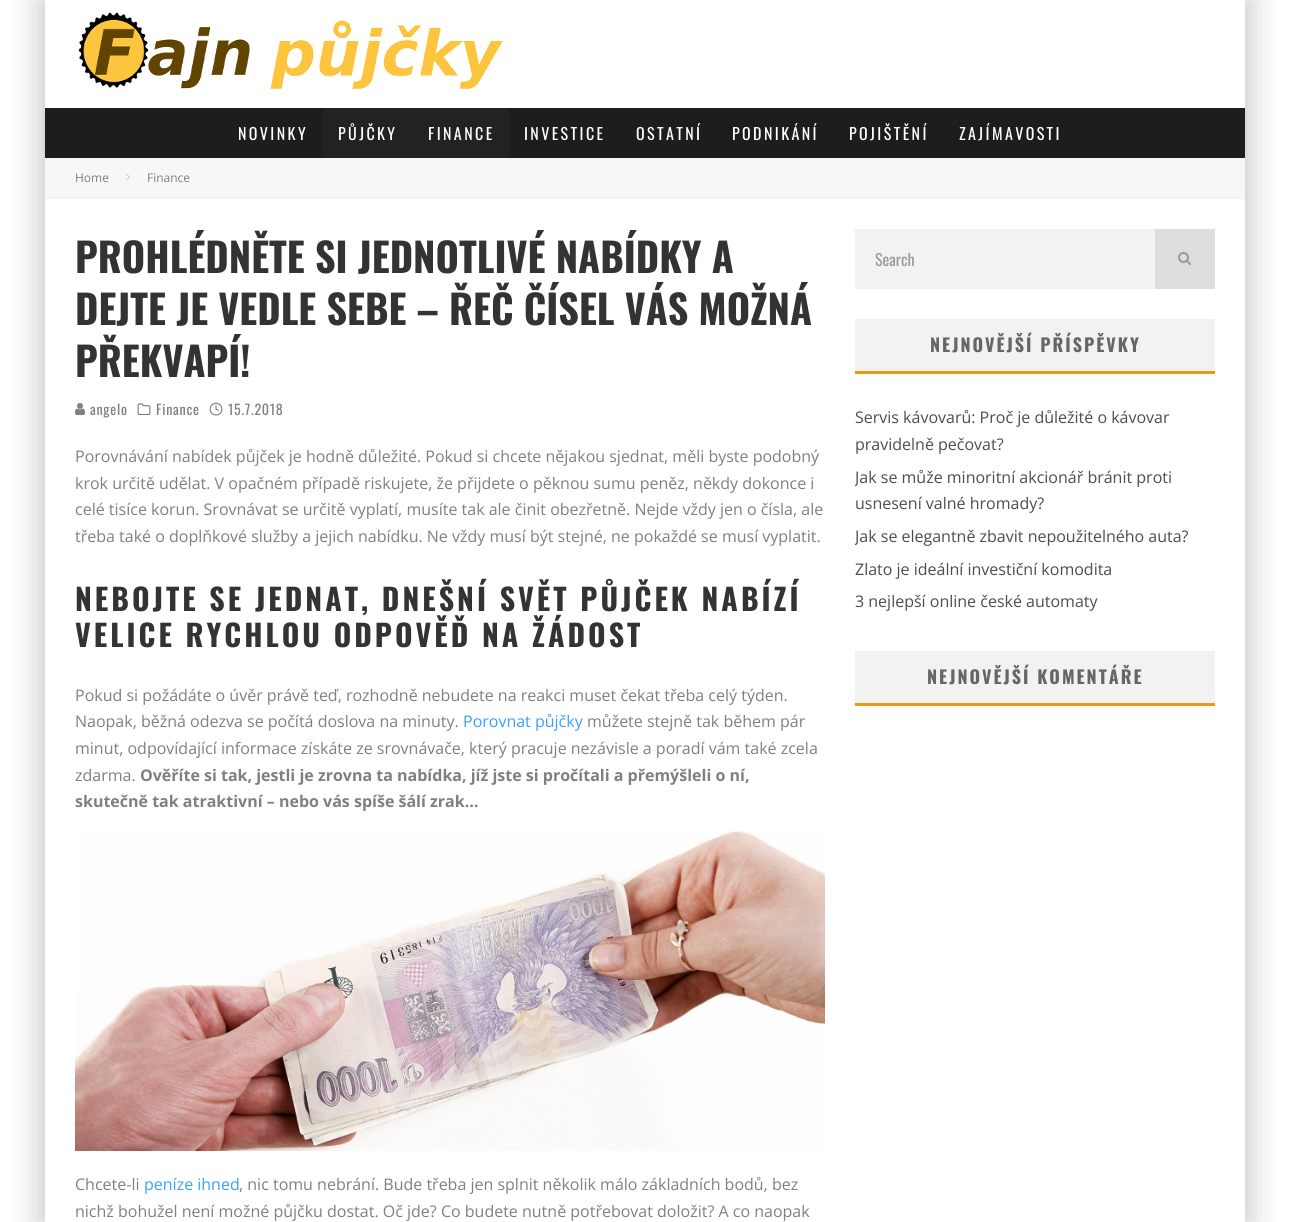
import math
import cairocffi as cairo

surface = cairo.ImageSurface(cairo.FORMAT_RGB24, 1290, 1222)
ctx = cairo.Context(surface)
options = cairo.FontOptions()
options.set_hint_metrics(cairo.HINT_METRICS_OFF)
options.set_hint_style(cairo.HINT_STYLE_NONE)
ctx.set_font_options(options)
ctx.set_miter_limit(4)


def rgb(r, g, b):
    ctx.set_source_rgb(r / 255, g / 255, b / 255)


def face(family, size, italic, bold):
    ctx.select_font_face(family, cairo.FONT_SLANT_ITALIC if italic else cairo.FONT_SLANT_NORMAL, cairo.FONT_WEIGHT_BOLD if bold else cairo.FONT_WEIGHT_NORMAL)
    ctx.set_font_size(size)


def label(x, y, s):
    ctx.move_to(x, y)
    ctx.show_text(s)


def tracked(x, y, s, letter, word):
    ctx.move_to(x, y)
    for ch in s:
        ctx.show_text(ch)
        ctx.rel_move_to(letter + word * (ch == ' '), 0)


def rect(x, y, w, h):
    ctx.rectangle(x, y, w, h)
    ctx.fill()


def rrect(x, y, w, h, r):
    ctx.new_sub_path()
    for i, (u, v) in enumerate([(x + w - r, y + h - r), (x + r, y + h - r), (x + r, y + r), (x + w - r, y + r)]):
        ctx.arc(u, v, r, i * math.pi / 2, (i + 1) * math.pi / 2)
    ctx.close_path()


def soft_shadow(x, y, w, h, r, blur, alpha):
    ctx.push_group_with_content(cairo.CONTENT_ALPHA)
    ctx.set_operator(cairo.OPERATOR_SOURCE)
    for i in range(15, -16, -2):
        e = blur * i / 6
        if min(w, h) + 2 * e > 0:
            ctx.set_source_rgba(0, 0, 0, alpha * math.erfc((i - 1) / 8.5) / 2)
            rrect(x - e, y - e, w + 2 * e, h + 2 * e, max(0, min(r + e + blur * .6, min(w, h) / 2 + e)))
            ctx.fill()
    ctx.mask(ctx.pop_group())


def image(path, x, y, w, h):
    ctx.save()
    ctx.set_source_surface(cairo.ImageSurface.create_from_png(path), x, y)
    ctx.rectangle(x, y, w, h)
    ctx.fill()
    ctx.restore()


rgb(255, 255, 255)
ctx.paint()
ctx.save()
ctx.set_fill_rule(cairo.FILL_RULE_EVEN_ODD)
ctx.new_path()
ctx.move_to(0, 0)
ctx.line_to(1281, 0)
ctx.line_to(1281, 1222)
ctx.line_to(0, 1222)
ctx.close_path()
ctx.move_to(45, 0)
ctx.line_to(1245, 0)
ctx.line_to(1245, 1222)
ctx.line_to(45, 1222)
ctx.close_path()
ctx.clip()
rgb(0, 0, 0)
soft_shadow(35, 0, 1200, 1222, 0, 15, 0.15)
ctx.restore()
ctx.save()
ctx.set_fill_rule(cairo.FILL_RULE_EVEN_ODD)
ctx.new_path()
ctx.move_to(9, 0)
ctx.line_to(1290, 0)
ctx.line_to(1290, 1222)
ctx.line_to(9, 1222)
ctx.close_path()
ctx.move_to(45, 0)
ctx.line_to(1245, 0)
ctx.line_to(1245, 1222)
ctx.line_to(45, 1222)
ctx.close_path()
ctx.clip()
rgb(0, 0, 0)
soft_shadow(55, 0, 1200, 1222, 0, 15, 0.15)
ctx.restore()
image('image0.png', 78, 12, 425, 77)
rgb(29, 29, 29)
rect(45, 108, 1200, 50)
face('Oswald', 16, 0, 0)
rgb(255, 255, 255)
tracked(238, 140, 'NOVINKY', 2.4, 0)
rgb(34, 34, 34)
rect(323, 108, 186, 50)
rgb(255, 255, 255)
tracked(338, 140, 'PŮJČKY', 2.4, 0)
tracked(428, 140, 'FINANCE', 2.4, 0)
tracked(524, 140, 'INVESTICE', 2.4, 0)
tracked(636, 140, 'OSTATNÍ', 2.4, 0)
tracked(732, 140, 'PODNIKÁNÍ', 2.4, 0)
tracked(849, 140, 'POJIŠTĚNÍ', 2.4, 0)
tracked(959, 140, 'ZAJÍMAVOSTI', 2.4, 0)
rgb(247, 247, 247)
rect(45, 158, 1200, 40)
rgb(243, 243, 243)
rect(45, 198, 1200, 1)
face('Open Sans', 12, 0, 0)
rgb(128, 128, 128)
label(75, 182, 'Home')
image('image1.png', 126, 173, 4, 8)
label(147, 182, 'Finance')
face('Oswald', 40, 0, 1)
rgb(51, 51, 51)
label(75, 273, 'PROHLÉDNĚTE SI JEDNOTLIVÉ NABÍDKY A')
label(75, 325, 'DEJTE JE VEDLE SEBE – ŘEČ ČÍSEL VÁS MOŽNÁ')
label(75, 377, 'PŘEKVAPÍ!')
image('image2.png', 75, 403, 10, 12)
face('Oswald', 14, 0, 0)
rgb(128, 128, 128)
tracked(90, 415, 'angelo', 0.75, 0)
image('image3.png', 137, 403, 14, 12)
tracked(156, 415, 'Finance', 0.75, 0)
image('image4.png', 209, 402, 14, 14)
tracked(228, 415, '15.7.2018', 0.75, 0)
face('Open Sans', 16, 0, 0)
label(75, 462, 'Porovnávání nabídek půjček je hodně důležité. Pokud si chcete nějakou sjednat, měli byste podobný')
label(75, 489, 'krok určitě udělat. V opačném případě riskujete, že přijdete o pěknou sumu peněz, někdy dokonce i')
label(75, 515, 'celé tisíce korun. Srovnávat se určitě vyplatí, musíte tak ale činit obezřetně. Nejde vždy jen o čísla, ale')
label(75, 542, 'třeba také o doplňkové služby a jejich nabídku. Ne vždy musí být stejné, ne pokaždé se musí vyplatit.')
face('Oswald', 30, 0, 1)
rgb(51, 51, 51)
tracked(75, 611, 'NEBOJTE SE JEDNAT, DNEŠNÍ SVĚT PŮJČEK NABÍZÍ', 3, 0)
tracked(75, 647, 'VELICE RYCHLOU ODPOVĚĎ NA ŽÁDOST', 3, 0)
face('Open Sans', 16, 0, 0)
rgb(128, 128, 128)
label(75, 701, 'Pokud si požádáte o úvěr právě teď, rozhodně nebudete na reakci muset čekat třeba celý týden.')
label(75, 727, 'Naopak, běžná odezva se počítá doslova na minuty.')
rgb(58, 160, 255)
label(463, 727, 'Porovnat půjčky')
rgb(128, 128, 128)
label(587, 727, 'můžete stejně tak během pár')
label(75, 754, 'minut, odpovídající informace získáte ze srovnávače, který pracuje nezávisle a poradí vám také zcela')
label(75, 781, 'zdarma.')
face('Open Sans', 16, 0, 1)
label(140, 781, 'Ověříte si tak, jestli je zrovna ta nabídka, jíž jste si pročítali a přemýšleli o ní,')
label(75, 807, 'skutečně tak atraktivní – nebo vás spíše šálí zrak…')
image('image5.png', 75, 831, 750, 320)
face('Open Sans', 16, 0, 0)
label(75, 1190, 'Chcete-li')
rgb(58, 160, 255)
label(144, 1190, 'peníze ihned')
rgb(128, 128, 128)
label(239, 1190, ', nic tomu nebrání. Bude třeba jen splnit několik málo základních bodů, bez')
label(75, 1217, 'nichž bohužel není možné půjčku dostat. Oč jde? Co budete nutně potřebovat doložit? A co naopak')
rgb(242, 242, 242)
rect(855, 229, 300, 60)
face('Oswald', 16, 0, 0)
rgb(153, 153, 153)
label(875, 266, 'Search')
rgb(221, 221, 221)
rect(1155, 229, 60, 60)
image('image6.png', 1178, 252, 13, 13)
rgb(242, 242, 242)
rect(855, 319, 360, 52)
rgb(235, 152, 18)
rect(855, 371, 360, 3)
face('Oswald', 18, 0, 1)
rgb(102, 102, 102)
tracked(930, 352, 'NEJNOVĚJŠÍ PŘÍSPĚVKY', 2, 0)
face('Open Sans', 16, 0, 0)
rgb(77, 77, 77)
label(855, 423, 'Servis kávovarů: Proč je důležité o kávovar')
label(855, 450, 'pravidelně pečovat?')
ctx.save()
ctx.rectangle(855, 319, 360, 302)
ctx.clip()
label(855, 483, 'Jak se může minoritní akcionář bránit proti')
ctx.restore()
label(855, 509, 'usnesení valné hromady?')
ctx.save()
ctx.rectangle(855, 319, 360, 302)
ctx.clip()
label(855, 542, 'Jak se elegantně zbavit nepoužitelného auta?')
ctx.restore()
label(855, 575, 'Zlato je ideální investiční komodita')
label(855, 607, '3 nejlepší online české automaty')
rgb(242, 242, 242)
rect(855, 651, 360, 52)
rgb(235, 152, 18)
rect(855, 703, 360, 3)
face('Oswald', 18, 0, 1)
rgb(102, 102, 102)
tracked(927, 684, 'NEJNOVĚJŠÍ KOMENTÁŘE', 2, 0)
surface.write_to_png('render.png')
